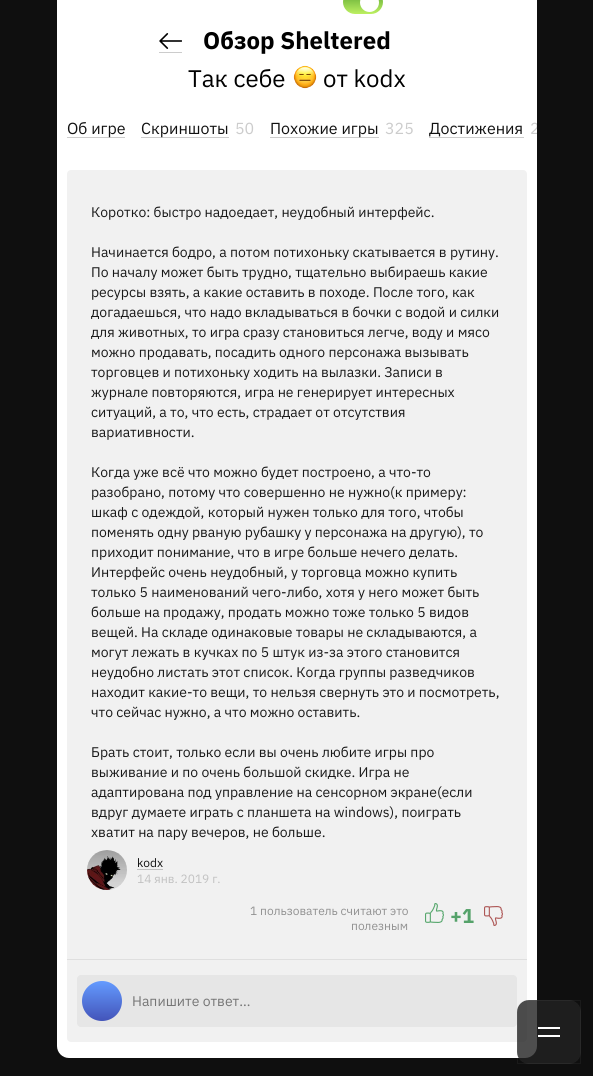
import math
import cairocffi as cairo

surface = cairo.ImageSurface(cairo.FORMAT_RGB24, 593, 1076)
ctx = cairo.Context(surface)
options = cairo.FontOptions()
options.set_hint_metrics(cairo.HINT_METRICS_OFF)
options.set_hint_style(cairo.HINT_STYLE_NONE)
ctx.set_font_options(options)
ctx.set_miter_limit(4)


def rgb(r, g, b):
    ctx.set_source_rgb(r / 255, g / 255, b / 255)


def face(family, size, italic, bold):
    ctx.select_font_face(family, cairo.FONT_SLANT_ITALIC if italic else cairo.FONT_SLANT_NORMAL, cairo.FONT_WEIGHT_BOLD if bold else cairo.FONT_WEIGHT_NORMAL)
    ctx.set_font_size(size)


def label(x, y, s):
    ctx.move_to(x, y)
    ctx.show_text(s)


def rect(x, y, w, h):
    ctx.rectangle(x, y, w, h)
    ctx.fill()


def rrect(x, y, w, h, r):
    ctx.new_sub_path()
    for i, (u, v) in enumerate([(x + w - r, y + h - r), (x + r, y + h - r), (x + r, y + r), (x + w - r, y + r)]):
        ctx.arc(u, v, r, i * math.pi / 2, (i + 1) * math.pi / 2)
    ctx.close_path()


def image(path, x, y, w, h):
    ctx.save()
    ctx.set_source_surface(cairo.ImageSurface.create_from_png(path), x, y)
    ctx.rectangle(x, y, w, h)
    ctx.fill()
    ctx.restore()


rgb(15, 15, 15)
ctx.paint()
rgb(255, 255, 255)
rrect(57, -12, 480, 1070, 12)
ctx.fill()
gradient = cairo.LinearGradient(363, -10, 363, 14)
gradient.add_color_stop_rgba(0, 0.329, 0.631, 0.188, 1)
gradient.add_color_stop_rgba(1, 0.741, 0.941, 0.38, 1)
ctx.set_source(gradient)
rrect(343, -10, 40, 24, 12)
ctx.fill()
rgb(255, 255, 255)
ctx.arc(369.5, 2.5, 9.5, 0, 2 * math.pi)
ctx.fill()
rgb(204, 204, 204)
rect(159, 52, 23, 1)
image('image0.png', 159, 33, 23, 16)
face('IBM Plex Sans', 24, 0, 1)
rgb(0, 0, 0)
label(203, 49, 'Обзор Sheltered')
face('IBM Plex Sans', 24, 0, 0)
label(188, 87, 'Так себе')
image('image1.png', 293, 65, 24, 24)
label(323, 87, 'от kodx')
rgb(204, 204, 204)
rect(67, 137, 58, 1)
face('IBM Plex Sans', 16, 0, 0)
rgb(17, 17, 17)
label(67, 134, 'Об игре')
rgb(204, 204, 204)
rect(141, 137, 88, 1)
rgb(17, 17, 17)
label(141, 134, 'Скриншоты')
rgb(204, 204, 204)
label(235, 134, '50')
rect(270, 137, 109, 1)
rgb(17, 17, 17)
label(270, 134, 'Похожие игры')
rgb(204, 204, 204)
label(385, 134, '325')
rect(429, 137, 95, 1)
rgb(17, 17, 17)
label(429, 134, 'Достижения')
ctx.save()
ctx.rectangle(57, 102, 480, 52)
ctx.clip()
rgb(204, 204, 204)
label(530, 134, '2')
ctx.restore()
rgb(241, 241, 241)
rrect(67, 170, 460, 872, 4)
ctx.fill()
face('IBM Plex Sans', 14, 0, 0)
rgb(24, 24, 24)
label(91, 217, 'Коротко: быстро надоедает, неудобный интерфейс.')
label(91, 257, 'Начинается бодро, а потом потихоньку скатывается в рутину.')
label(91, 277, 'По началу может быть трудно, тщательно выбираешь какие')
label(91, 297, 'ресурсы взять, а какие оставить в походе. После того, как')
label(91, 317, 'догадаешься, что надо вкладываться в бочки с водой и силки')
label(91, 337, 'для животных, то игра сразу становиться легче, воду и мясо')
label(91, 357, 'можно продавать, посадить одного персонажа вызывать')
label(91, 377, 'торговцев и потихоньку ходить на вылазки. Записи в')
label(91, 397, 'журнале повторяются, игра не генерирует интересных')
label(91, 417, 'ситуаций, а то, что есть, страдает от отсутствия')
label(91, 437, 'вариативности.')
label(91, 477, 'Когда уже всё что можно будет построено, а что-то')
label(91, 497, 'разобрано, потому что совершенно не нужно(к примеру:')
label(91, 517, 'шкаф с одеждой, который нужен только для того, чтобы')
label(91, 537, 'поменять одну рваную рубашку у персонажа на другую), то')
label(91, 557, 'приходит понимание, что в игре больше нечего делать.')
label(91, 577, 'Интерфейс очень неудобный, у торговца можно купить')
label(91, 597, 'только 5 наименований чего-либо, хотя у него может быть')
label(91, 617, 'больше на продажу, продать можно тоже только 5 видов')
label(91, 637, 'вещей. На складе одинаковые товары не складываются, а')
label(91, 657, 'могут лежать в кучках по 5 штук из-за этого становится')
label(91, 677, 'неудобно листать этот список. Когда группы разведчиков')
label(91, 697, 'находит какие-то вещи, то нельзя свернуть это и посмотреть,')
label(91, 717, 'что сейчас нужно, а что можно оставить.')
label(91, 757, 'Брать стоит, только если вы очень любите игры про')
label(91, 777, 'выживание и по очень большой скидке. Игра не')
label(91, 797, 'адаптирована под управление на сенсорном экране(если')
label(91, 817, 'вдруг думаете играть с планшета на windows), поиграть')
label(91, 837, 'хватит на пару вечеров, не больше.')
image('image2.png', 87, 850, 40, 40)
rgb(193, 193, 193)
rect(137, 869, 26, 1)
face('IBM Plex Sans', 12, 0, 0)
rgb(17, 17, 17)
label(137, 867, 'kodx')
rgb(193, 193, 193)
label(137, 883, '14 янв. 2019 г.')
rgb(145, 145, 145)
label(250, 915, '1 пользователь считают это')
label(351, 930, 'полезным')
image('image3.png', 425, 903, 19, 20)
face('IBM Plex Sans', 20, 0, 1)
rgb(85, 162, 106)
label(450, 923, '+1')
image('image4.png', 484, 906, 19, 20)
rgb(223, 223, 223)
rect(67, 959, 460, 1)
rgb(230, 230, 230)
rrect(77, 975, 440, 52, 4)
ctx.fill()
gradient = cairo.LinearGradient(102, 1021, 102, 981)
gradient.add_color_stop_rgba(0, 0.263, 0.329, 0.725, 1)
gradient.add_color_stop_rgba(1, 0.392, 0.608, 1, 1)
ctx.set_source(gradient)
ctx.arc(102, 1001, 20, 0, 2 * math.pi)
ctx.fill()
face('IBM Plex Sans', 14, 0, 0)
rgb(117, 117, 117)
label(132, 1006, 'Напишите ответ…')
ctx.set_source_rgba(0.133, 0.133, 0.133, 0.8)
rrect(517, 1000, 64, 64, 12)
ctx.fill()
ctx.rectangle(517.5, 1000.5, 63, 63)
ctx.set_source_rgba(1, 1, 1, 0.05)
ctx.set_line_width(1)
ctx.stroke()
image('image5.png', 538, 1027, 22, 10)
surface.write_to_png('render.png')
